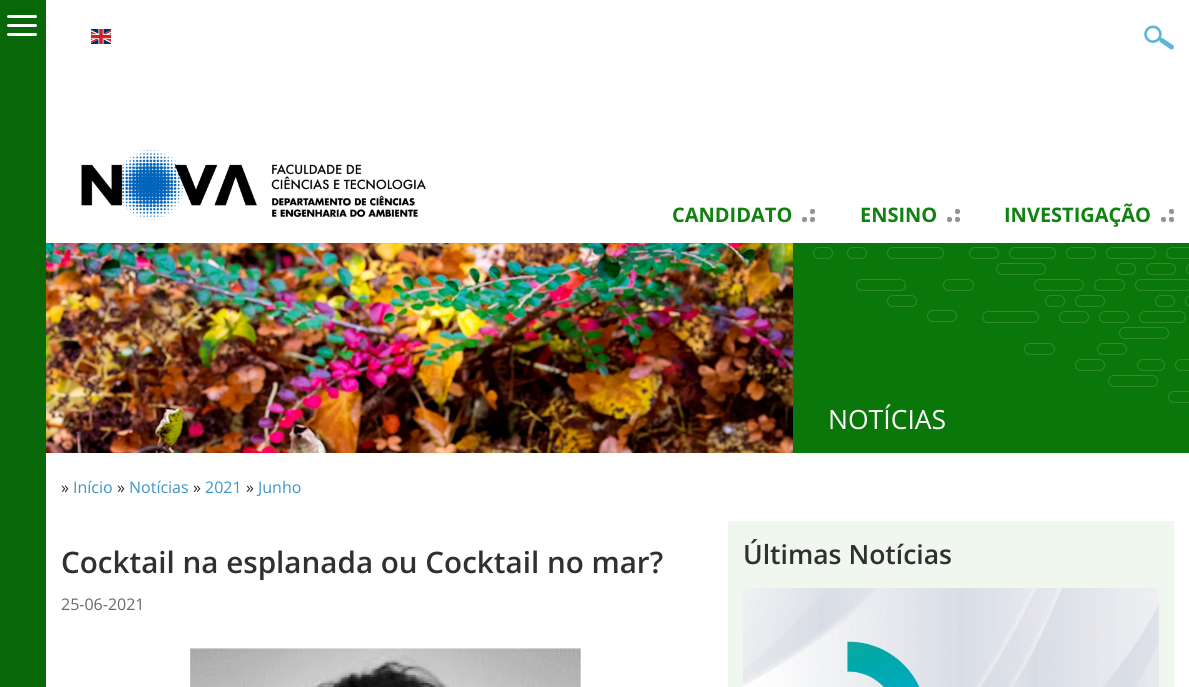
import math
import cairocffi as cairo

surface = cairo.ImageSurface(cairo.FORMAT_RGB24, 1189, 687)
ctx = cairo.Context(surface)
options = cairo.FontOptions()
options.set_hint_metrics(cairo.HINT_METRICS_OFF)
options.set_hint_style(cairo.HINT_STYLE_NONE)
ctx.set_font_options(options)
ctx.set_miter_limit(4)


def rgb(r, g, b):
    ctx.set_source_rgb(r / 255, g / 255, b / 255)


def face(family, size, italic, bold):
    ctx.select_font_face(family, cairo.FONT_SLANT_ITALIC if italic else cairo.FONT_SLANT_NORMAL, cairo.FONT_WEIGHT_BOLD if bold else cairo.FONT_WEIGHT_NORMAL)
    ctx.set_font_size(size)


def label(x, y, s):
    ctx.move_to(x, y)
    ctx.show_text(s)


def rect(x, y, w, h):
    ctx.rectangle(x, y, w, h)
    ctx.fill()


def image(path, x, y, w, h):
    ctx.save()
    ctx.set_source_surface(cairo.ImageSurface.create_from_png(path), x, y)
    ctx.rectangle(x, y, w, h)
    ctx.fill()
    ctx.restore()


rgb(255, 255, 255)
ctx.paint()
rgb(8, 103, 8)
rect(0, 0, 46, 687)
image('image0.png', 7, 15, 30, 21)
image('image1.png', 91, 29, 20, 15)
image('image2.png', 1144, 25, 30, 25)
image('image3.png', 81, 149, 345, 72)
face('Open Sans', 20, 0, 1)
rgb(15, 130, 15)
label(672, 222, 'CANDIDATO')
image('image4.png', 802, 209, 13, 13)
label(860, 222, 'ENSINO')
image('image4.png', 947, 209, 13, 13)
label(1004, 222, 'INVESTIGAÇÃO')
image('image4.png', 1161, 209, 13, 13)
rgb(10, 119, 10)
rect(793, 243, 396, 210)
image('image5.png', 46, 243, 747, 210)
image('image6.png', 813, 247, 376, 156)
face('Open Sans', 26.5, 0, 0)
rgb(255, 255, 255)
label(828, 429, 'NOTÍCIAS')
face('Open Sans', 16, 0, 0)
rgb(48, 48, 48)
label(61, 493, '»')
rgb(62, 149, 200)
label(73, 493, 'Início')
rgb(48, 48, 48)
label(117, 493, '»')
rgb(62, 149, 200)
label(129, 493, 'Notícias')
rgb(48, 48, 48)
label(193, 493, '»')
rgb(62, 149, 200)
label(205, 493, '2021')
rgb(48, 48, 48)
label(246, 493, '»')
rgb(62, 149, 200)
label(258, 493, 'Junho')
face('Open Sans SemiBold', 29.6, 0, 0)
rgb(48, 48, 48)
label(61, 573, 'Cocktail na esplanada ou Cocktail no mar?')
face('Open Sans', 16, 0, 0)
rgb(104, 104, 104)
label(61, 610, '25-06-2021')
image('image7.png', 190, 648, 391, 39)
rgb(239, 247, 239)
rect(728, 521, 446, 166)
face('Open Sans SemiBold', 26.5, 0, 0)
rgb(48, 48, 48)
label(743, 564, 'Últimas Notícias')
image('image8.png', 743, 588, 416, 99)
surface.write_to_png('render.png')
